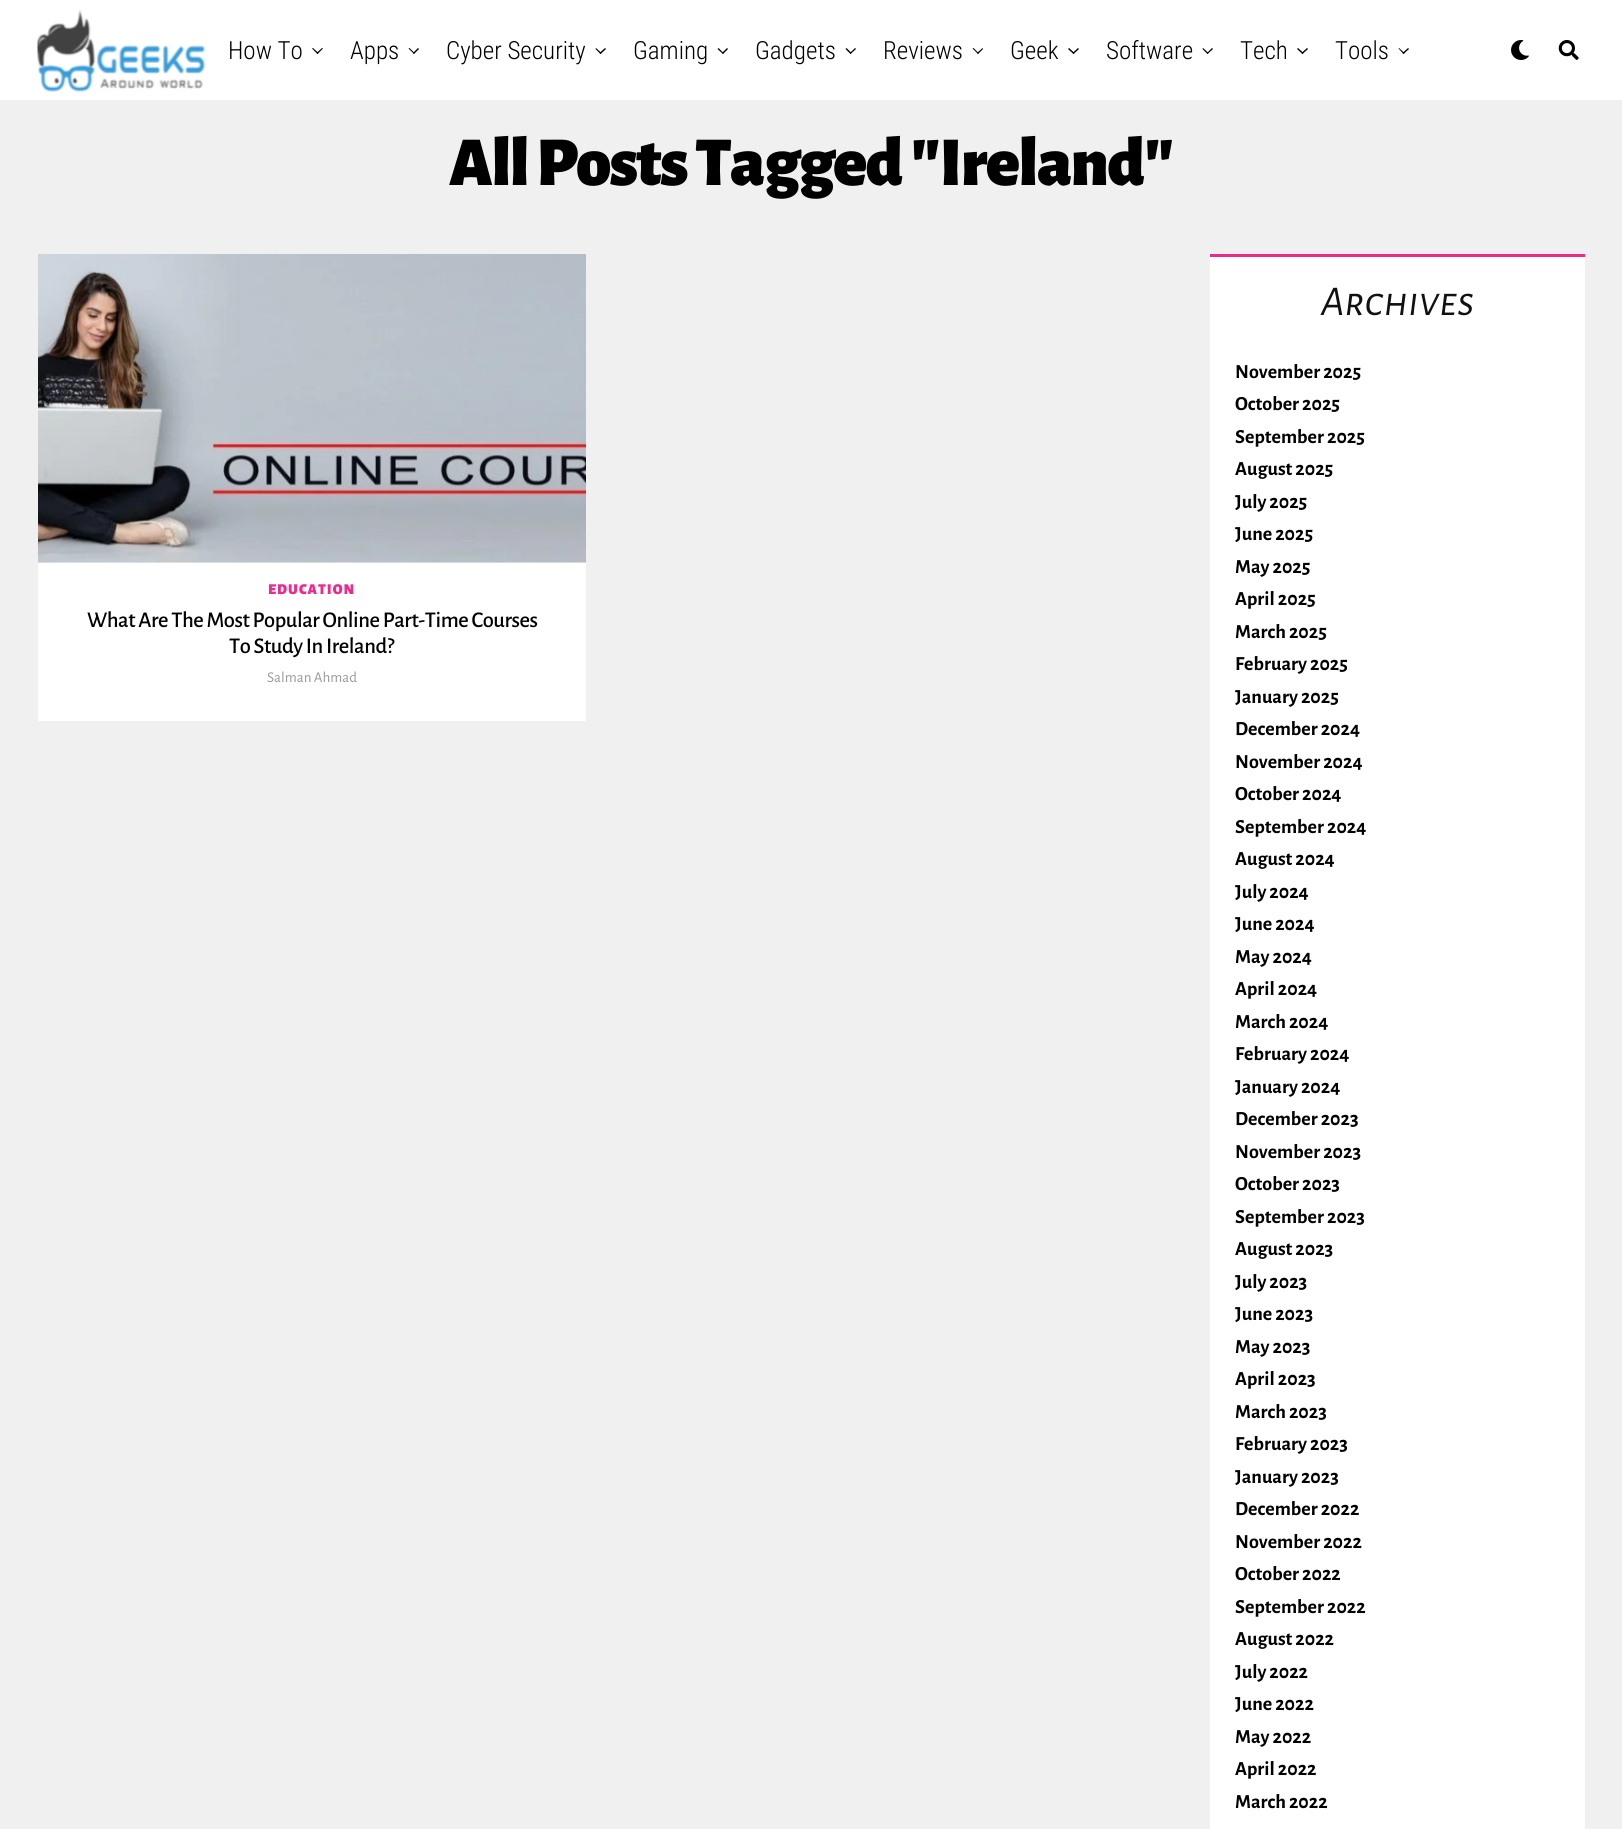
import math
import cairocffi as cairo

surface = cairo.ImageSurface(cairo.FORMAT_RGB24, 1622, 1829)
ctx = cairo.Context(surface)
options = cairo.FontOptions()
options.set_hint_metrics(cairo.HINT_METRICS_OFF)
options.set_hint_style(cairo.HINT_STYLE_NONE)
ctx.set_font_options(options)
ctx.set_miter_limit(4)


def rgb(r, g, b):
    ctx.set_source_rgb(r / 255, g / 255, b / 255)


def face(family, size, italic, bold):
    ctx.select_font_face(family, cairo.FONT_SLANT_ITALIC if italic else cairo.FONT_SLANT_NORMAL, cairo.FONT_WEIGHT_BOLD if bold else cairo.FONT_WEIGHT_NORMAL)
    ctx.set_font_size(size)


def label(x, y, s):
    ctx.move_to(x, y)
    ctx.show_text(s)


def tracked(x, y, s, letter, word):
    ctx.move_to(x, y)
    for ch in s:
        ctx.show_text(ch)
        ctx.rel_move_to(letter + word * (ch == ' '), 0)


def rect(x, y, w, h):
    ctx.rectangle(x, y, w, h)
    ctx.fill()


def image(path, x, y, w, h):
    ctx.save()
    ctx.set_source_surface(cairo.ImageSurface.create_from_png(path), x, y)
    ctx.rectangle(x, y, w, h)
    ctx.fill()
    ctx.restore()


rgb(240, 240, 240)
ctx.paint()
rgb(255, 255, 255)
rect(0, 0, 1622, 100)
image('image0.png', 37, 10, 169, 82)
face('Roboto Condensed Light', 25, 0, 0)
rgb(0, 0, 0)
label(228, 59, 'How To')
ctx.new_path()
ctx.move_to(322, 48)
ctx.line_to(323, 48.5)
ctx.line_to(317.5, 54)
ctx.line_to(316.5, 53)
ctx.close_path()
ctx.fill()
ctx.new_path()
ctx.move_to(313, 48)
ctx.line_to(318.5, 53)
ctx.line_to(317.5, 54)
ctx.line_to(312, 48.5)
ctx.close_path()
ctx.fill()
label(350, 59, 'Apps')
ctx.new_path()
ctx.move_to(418, 48)
ctx.line_to(419, 49)
ctx.line_to(414, 54)
ctx.line_to(413, 53)
ctx.close_path()
ctx.fill()
ctx.new_path()
ctx.move_to(409.5, 48)
ctx.line_to(414.5, 53)
ctx.line_to(414, 54)
ctx.line_to(408.5, 48.5)
ctx.close_path()
ctx.fill()
label(446, 59, 'Cyber Security')
ctx.new_path()
ctx.move_to(605, 48)
ctx.line_to(606, 49)
ctx.line_to(600.5, 54)
ctx.line_to(599.5, 53)
ctx.close_path()
ctx.fill()
ctx.new_path()
ctx.move_to(596, 48)
ctx.line_to(601.5, 53)
ctx.line_to(600.5, 54)
ctx.line_to(595.5, 49)
ctx.close_path()
ctx.fill()
label(633, 59, 'Gaming')
ctx.new_path()
ctx.move_to(727, 48)
ctx.line_to(728, 49)
ctx.line_to(723, 54)
ctx.line_to(722, 53)
ctx.close_path()
ctx.fill()
ctx.new_path()
ctx.move_to(718.5, 48)
ctx.line_to(723.5, 53)
ctx.line_to(723, 54)
ctx.line_to(717.5, 49)
ctx.close_path()
ctx.fill()
label(755, 59, 'Gadgets')
ctx.new_path()
ctx.move_to(855, 48)
ctx.line_to(856, 49)
ctx.line_to(850.5, 54)
ctx.line_to(850, 53)
ctx.close_path()
ctx.fill()
ctx.new_path()
ctx.move_to(846.5, 48)
ctx.line_to(851.5, 53)
ctx.line_to(850.5, 54)
ctx.line_to(845.5, 49)
ctx.close_path()
ctx.fill()
label(883, 59, 'Reviews')
ctx.new_path()
ctx.move_to(982.5, 48)
ctx.line_to(983, 49)
ctx.line_to(978, 54)
ctx.line_to(977, 53)
ctx.close_path()
ctx.fill()
ctx.new_path()
ctx.move_to(973.5, 48)
ctx.line_to(978.5, 53)
ctx.line_to(978, 54)
ctx.line_to(972.5, 48.5)
ctx.close_path()
ctx.fill()
label(1010, 59, 'Geek')
ctx.new_path()
ctx.move_to(1078, 48)
ctx.line_to(1079, 49)
ctx.line_to(1073.5, 54)
ctx.line_to(1072.5, 53)
ctx.close_path()
ctx.fill()
ctx.new_path()
ctx.move_to(1069, 48)
ctx.line_to(1074.5, 53)
ctx.line_to(1073.5, 54)
ctx.line_to(1068, 49)
ctx.close_path()
ctx.fill()
label(1106, 59, 'Software')
ctx.new_path()
ctx.move_to(1212, 48)
ctx.line_to(1213, 49)
ctx.line_to(1207.5, 54)
ctx.line_to(1207, 53)
ctx.close_path()
ctx.fill()
ctx.new_path()
ctx.move_to(1203, 48)
ctx.line_to(1208.5, 53)
ctx.line_to(1207.5, 54)
ctx.line_to(1202.5, 49)
ctx.close_path()
ctx.fill()
label(1240, 59, 'Tech')
ctx.new_path()
ctx.move_to(1307, 48)
ctx.line_to(1308, 49)
ctx.line_to(1302.5, 54)
ctx.line_to(1301.5, 53)
ctx.close_path()
ctx.fill()
ctx.new_path()
ctx.move_to(1298, 48)
ctx.line_to(1303.5, 53)
ctx.line_to(1302.5, 54)
ctx.line_to(1297, 49)
ctx.close_path()
ctx.fill()
label(1335, 59, 'Tools')
ctx.new_path()
ctx.move_to(1408, 48)
ctx.line_to(1409, 49)
ctx.line_to(1403.5, 54)
ctx.line_to(1402.5, 53)
ctx.close_path()
ctx.fill()
ctx.new_path()
ctx.move_to(1399, 48)
ctx.line_to(1404.5, 53)
ctx.line_to(1403.5, 54)
ctx.line_to(1398.5, 48.5)
ctx.close_path()
ctx.fill()
image('image1.png', 1511, 40, 18, 20)
image('image2.png', 1558, 40, 21, 20)
face('Alegreya Sans Black', 70, 0, 0)
tracked(449, 185, 'All Posts Tagged "Ireland"', -1.4, 0)
rgb(255, 255, 255)
rect(38, 562, 548, 159)
image('image3.png', 38, 254, 548, 309)
face('Alegreya Sans Black', 15, 0, 0)
rgb(236, 43, 140)
tracked(268, 594, 'EDUCATION', 1, 0)
face('Alegreya Sans Medium', 22.5, 0, 0)
rgb(0, 0, 0)
tracked(87, 627, 'What Are The Most Popular Online Part-Time Courses', -0.45, 0)
tracked(229, 653, 'To Study In Ireland?', -0.45, 0)
face('Alegreya Sans', 15, 0, 0)
rgb(153, 153, 153)
label(267, 682, 'Salman Ahmad')
rgb(255, 255, 255)
rect(1210, 257, 375, 1572)
rgb(236, 43, 140)
rect(1210, 254, 375, 3)
face('Alegreya Sans SC', 42.5, 1, 0)
rgb(17, 17, 17)
label(1321, 315, 'Archives')
face('Alegreya Sans', 20, 0, 1)
rgb(0, 0, 0)
label(1235, 378, 'November 2025')
label(1235, 410, 'October 2025')
label(1235, 443, 'September 2025')
label(1235, 475, 'August 2025')
label(1235, 508, 'July 2025')
label(1235, 540, 'June 2025')
label(1235, 573, 'May 2025')
label(1235, 605, 'April 2025')
label(1235, 638, 'March 2025')
label(1235, 670, 'February 2025')
label(1235, 703, 'January 2025')
label(1235, 735, 'December 2024')
label(1235, 768, 'November 2024')
label(1235, 800, 'October 2024')
label(1235, 833, 'September 2024')
label(1235, 865, 'August 2024')
label(1235, 898, 'July 2024')
label(1235, 930, 'June 2024')
label(1235, 963, 'May 2024')
label(1235, 995, 'April 2024')
label(1235, 1028, 'March 2024')
label(1235, 1060, 'February 2024')
label(1235, 1093, 'January 2024')
label(1235, 1125, 'December 2023')
label(1235, 1158, 'November 2023')
label(1235, 1190, 'October 2023')
label(1235, 1223, 'September 2023')
label(1235, 1255, 'August 2023')
label(1235, 1288, 'July 2023')
label(1235, 1320, 'June 2023')
label(1235, 1353, 'May 2023')
label(1235, 1385, 'April 2023')
label(1235, 1418, 'March 2023')
label(1235, 1450, 'February 2023')
label(1235, 1483, 'January 2023')
label(1235, 1515, 'December 2022')
label(1235, 1548, 'November 2022')
label(1235, 1580, 'October 2022')
label(1235, 1613, 'September 2022')
label(1235, 1645, 'August 2022')
label(1235, 1678, 'July 2022')
label(1235, 1710, 'June 2022')
label(1235, 1743, 'May 2022')
label(1235, 1775, 'April 2022')
label(1235, 1808, 'March 2022')
surface.write_to_png('render.png')
